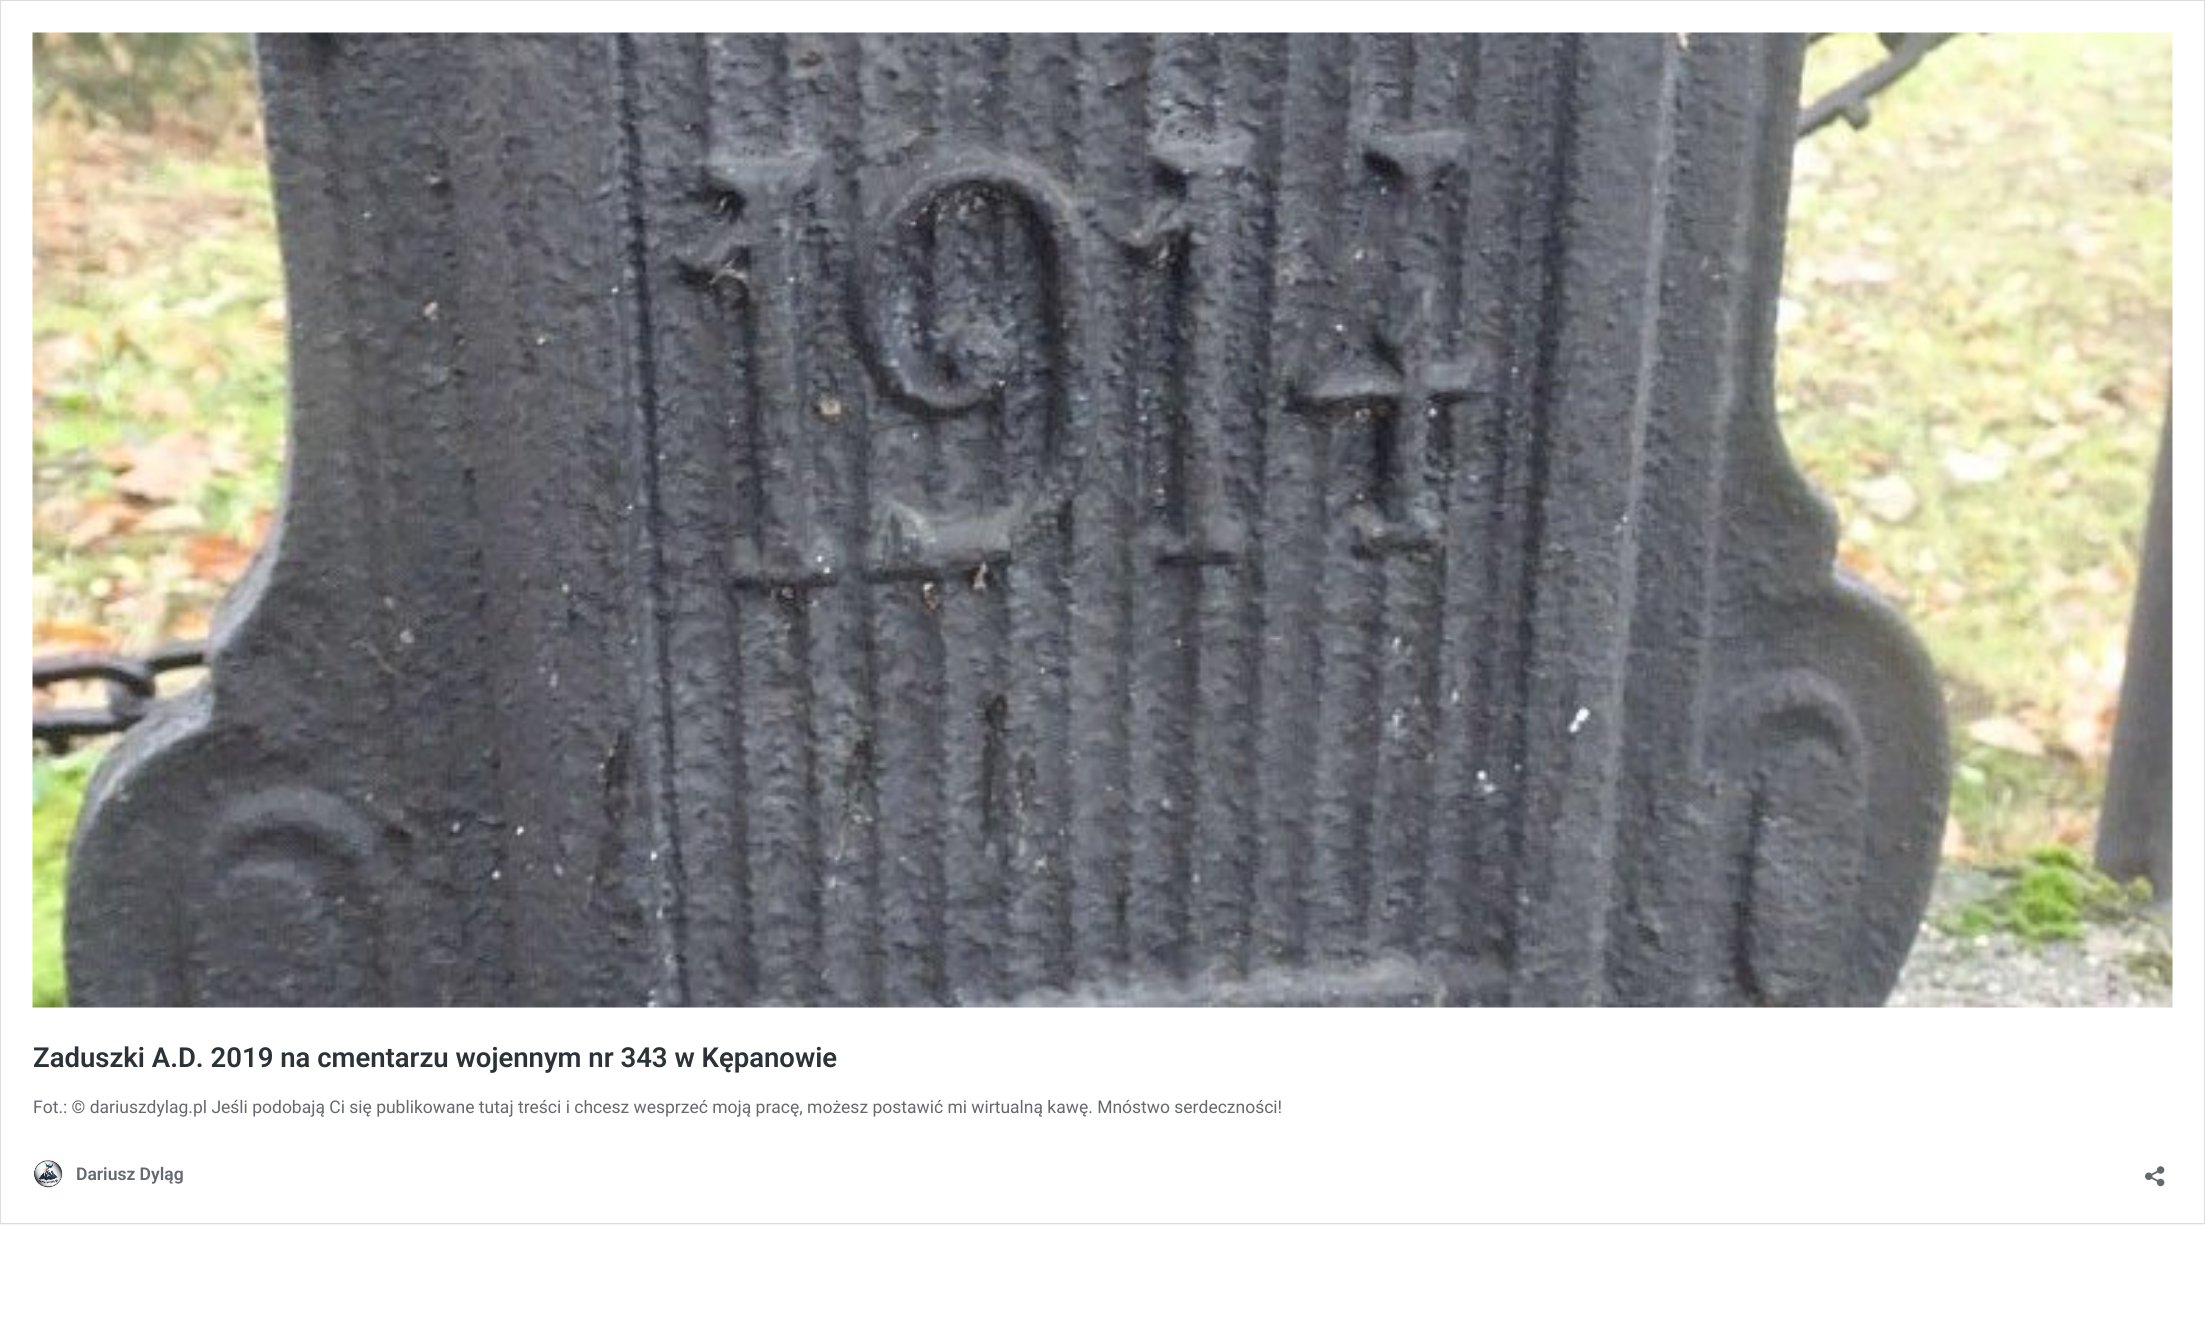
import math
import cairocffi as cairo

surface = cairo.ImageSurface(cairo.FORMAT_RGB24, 2205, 1340)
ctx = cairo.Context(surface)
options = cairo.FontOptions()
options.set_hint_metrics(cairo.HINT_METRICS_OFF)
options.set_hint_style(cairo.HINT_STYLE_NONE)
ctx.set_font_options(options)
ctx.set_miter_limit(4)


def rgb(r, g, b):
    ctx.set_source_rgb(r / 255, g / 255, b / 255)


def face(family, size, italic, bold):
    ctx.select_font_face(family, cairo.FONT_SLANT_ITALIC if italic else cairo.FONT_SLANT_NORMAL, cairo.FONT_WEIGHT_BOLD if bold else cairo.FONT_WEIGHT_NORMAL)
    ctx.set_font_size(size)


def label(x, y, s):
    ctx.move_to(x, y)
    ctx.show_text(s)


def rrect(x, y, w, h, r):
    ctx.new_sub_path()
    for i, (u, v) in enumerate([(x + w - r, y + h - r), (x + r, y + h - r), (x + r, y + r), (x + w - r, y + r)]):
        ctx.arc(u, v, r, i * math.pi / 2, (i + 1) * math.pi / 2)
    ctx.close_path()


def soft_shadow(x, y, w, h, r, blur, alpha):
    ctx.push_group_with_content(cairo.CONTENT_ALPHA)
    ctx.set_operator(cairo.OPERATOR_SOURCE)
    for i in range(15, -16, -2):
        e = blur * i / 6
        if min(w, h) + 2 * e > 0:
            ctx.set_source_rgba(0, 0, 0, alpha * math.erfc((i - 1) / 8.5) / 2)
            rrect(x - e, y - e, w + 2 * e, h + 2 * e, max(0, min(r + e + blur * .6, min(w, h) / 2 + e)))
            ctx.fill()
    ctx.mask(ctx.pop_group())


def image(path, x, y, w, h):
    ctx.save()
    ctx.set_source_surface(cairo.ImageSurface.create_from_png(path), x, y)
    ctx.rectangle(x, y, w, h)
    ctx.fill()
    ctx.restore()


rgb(255, 255, 255)
ctx.paint()
rgb(0, 0, 0)
soft_shadow(0, 1, 2205, 1224, 0, 0.5, 0.05)
rgb(255, 255, 255)
ctx.rectangle(0.5, 0.5, 2204, 1223)
ctx.fill_preserve()
rgb(220, 220, 222)
ctx.set_line_width(1)
ctx.stroke()
image('image0.png', 32, 32, 2141, 976)
face('Roboto SemiBold', 27.5, 0, 0)
rgb(44, 51, 56)
label(33, 1067, 'Zaduszki A.D. 2019 na cmentarzu wojennym nr 343 w Kępanowie')
face('Roboto', 17.5, 0, 0)
rgb(100, 105, 112)
label(33, 1113, 'Fot.: © dariuszdylag.pl Jeśli podobają Ci się publikowane tutaj treści i chcesz wesprzeć moją pracę, możesz postawić mi wirtualną kawę. Mnóstwo serdeczności!')
image('image1.png', 34, 1160, 29, 28)
face('Roboto SemiBold', 17.5, 0, 0)
label(76, 1180, 'Dariusz Dyląg')
image('image2.png', 2145, 1166, 20, 21)
surface.write_to_png('render.png')
